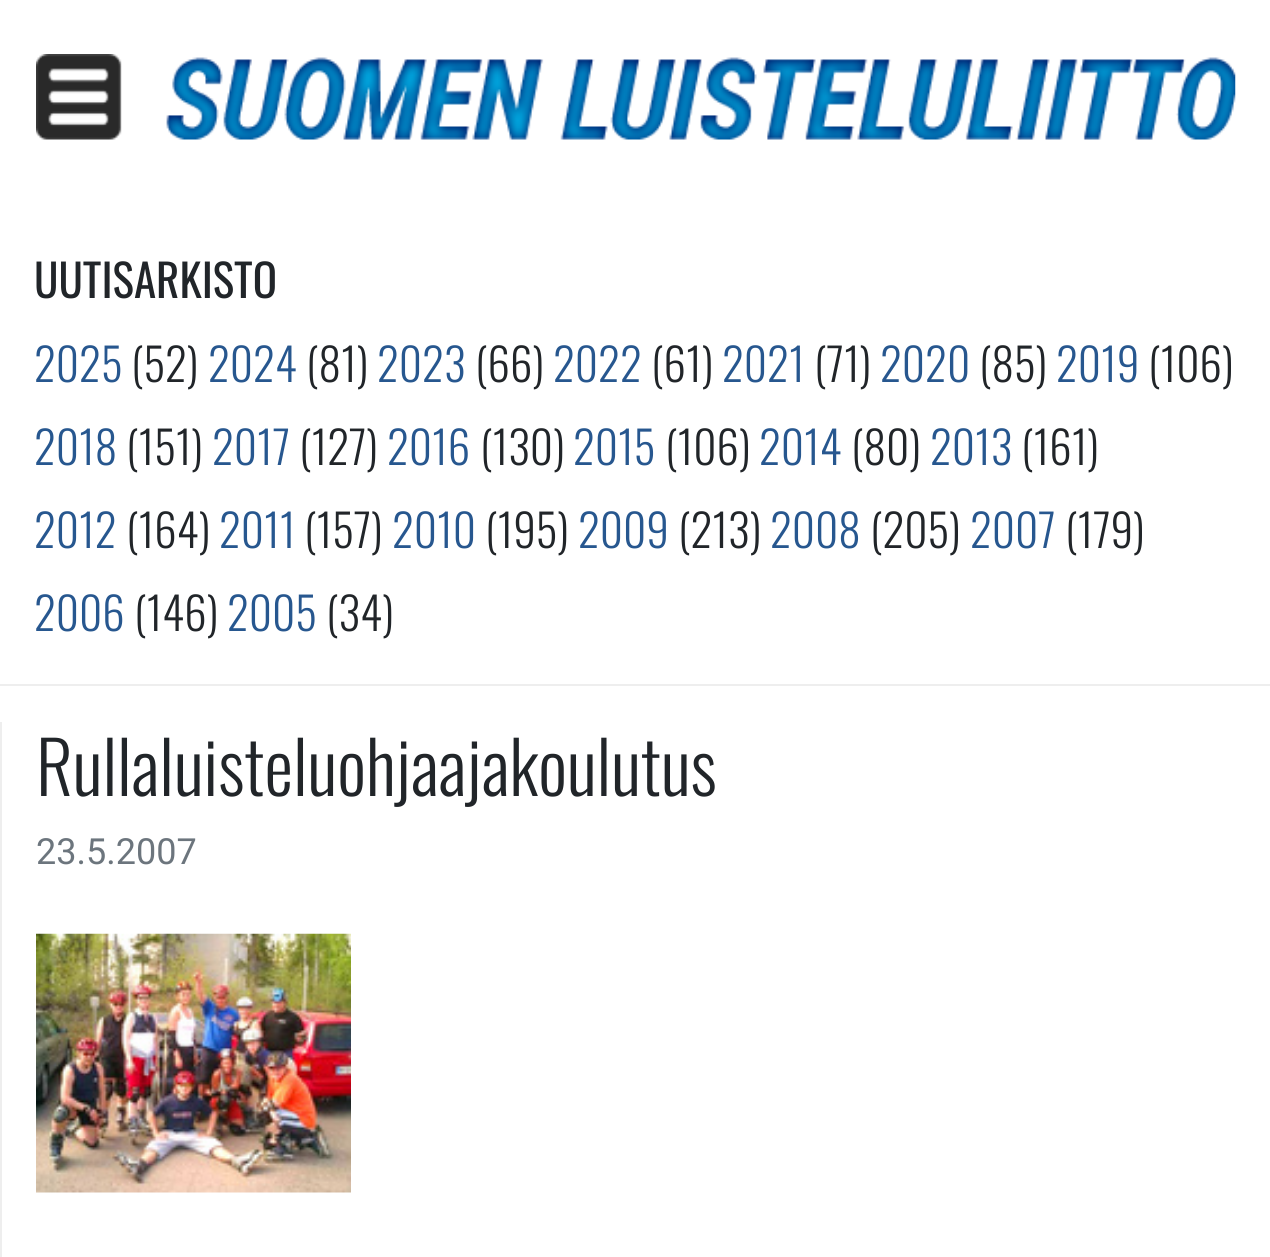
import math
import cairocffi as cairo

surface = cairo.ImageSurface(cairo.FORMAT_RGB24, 1270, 1257)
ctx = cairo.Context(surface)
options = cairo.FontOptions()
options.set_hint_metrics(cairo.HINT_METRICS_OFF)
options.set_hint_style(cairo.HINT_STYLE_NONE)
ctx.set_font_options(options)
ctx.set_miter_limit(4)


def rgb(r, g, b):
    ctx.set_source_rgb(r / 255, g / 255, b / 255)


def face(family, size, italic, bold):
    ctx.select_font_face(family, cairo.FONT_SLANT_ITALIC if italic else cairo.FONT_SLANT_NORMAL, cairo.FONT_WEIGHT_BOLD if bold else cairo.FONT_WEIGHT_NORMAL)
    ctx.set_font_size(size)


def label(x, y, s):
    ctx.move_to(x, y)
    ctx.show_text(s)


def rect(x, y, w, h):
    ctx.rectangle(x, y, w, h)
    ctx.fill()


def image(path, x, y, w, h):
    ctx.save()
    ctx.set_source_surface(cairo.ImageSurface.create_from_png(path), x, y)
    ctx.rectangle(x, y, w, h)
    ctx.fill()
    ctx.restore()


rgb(255, 255, 255)
ctx.paint()
image('image0.png', 36, 54, 1200, 86)
rgb(238, 238, 238)
rect(0, 684, 1270, 2)
face('Oswald', 45, 0, 0)
rgb(33, 37, 41)
label(34, 298, 'UUTISARKISTO')
face('Oswald Light', 45, 0, 0)
rgb(39, 87, 143)
label(34, 382, '2025')
rgb(33, 37, 41)
label(131, 382, '(52)')
rgb(39, 87, 143)
label(208, 382, '2024')
rgb(33, 37, 41)
label(306, 382, '(81)')
rgb(39, 87, 143)
label(377, 382, '2023')
rgb(33, 37, 41)
label(475, 382, '(66)')
rgb(39, 87, 143)
label(553, 382, '2022')
rgb(33, 37, 41)
label(651, 382, '(61)')
rgb(39, 87, 143)
label(722, 382, '2021')
rgb(33, 37, 41)
label(814, 382, '(71)')
rgb(39, 87, 143)
label(880, 382, '2020')
rgb(33, 37, 41)
label(979, 382, '(85)')
rgb(39, 87, 143)
label(1056, 382, '2019')
rgb(33, 37, 41)
label(1148, 382, '(106)')
rgb(39, 87, 143)
label(34, 465, '2018')
rgb(33, 37, 41)
label(126, 465, '(151)')
rgb(39, 87, 143)
label(212, 465, '2017')
rgb(33, 37, 41)
label(299, 465, '(127)')
rgb(39, 87, 143)
label(387, 465, '2016')
rgb(33, 37, 41)
label(480, 465, '(130)')
rgb(39, 87, 143)
label(573, 465, '2015')
rgb(33, 37, 41)
label(665, 465, '(106)')
rgb(39, 87, 143)
label(759, 465, '2014')
rgb(33, 37, 41)
label(851, 465, '(80)')
rgb(39, 87, 143)
label(930, 465, '2013')
rgb(33, 37, 41)
label(1021, 465, '(161)')
rgb(39, 87, 143)
label(34, 548, '2012')
rgb(33, 37, 41)
label(126, 548, '(164)')
rgb(39, 87, 143)
label(219, 548, '2011')
rgb(33, 37, 41)
label(304, 548, '(157)')
rgb(39, 87, 143)
label(392, 548, '2010')
rgb(33, 37, 41)
label(485, 548, '(195)')
rgb(39, 87, 143)
label(578, 548, '2009')
rgb(33, 37, 41)
label(678, 548, '(213)')
rgb(39, 87, 143)
label(770, 548, '2008')
rgb(33, 37, 41)
label(870, 548, '(205)')
rgb(39, 87, 143)
label(970, 548, '2007')
rgb(33, 37, 41)
label(1065, 548, '(179)')
rgb(39, 87, 143)
label(34, 631, '2006')
rgb(33, 37, 41)
label(134, 631, '(146)')
rgb(39, 87, 143)
label(227, 631, '2005')
rgb(33, 37, 41)
label(326, 631, '(34)')
rgb(238, 238, 238)
rect(0, 722, 2, 535)
face('Oswald Light', 72, 0, 0)
rgb(33, 37, 41)
label(36, 796, 'Rullaluisteluohjaajakoulutus')
face('Roboto', 36, 0, 0)
rgb(108, 117, 125)
label(36, 864, '23.5.2007')
image('image1.png', 36, 933, 315, 260)
surface.write_to_png('render.png')
